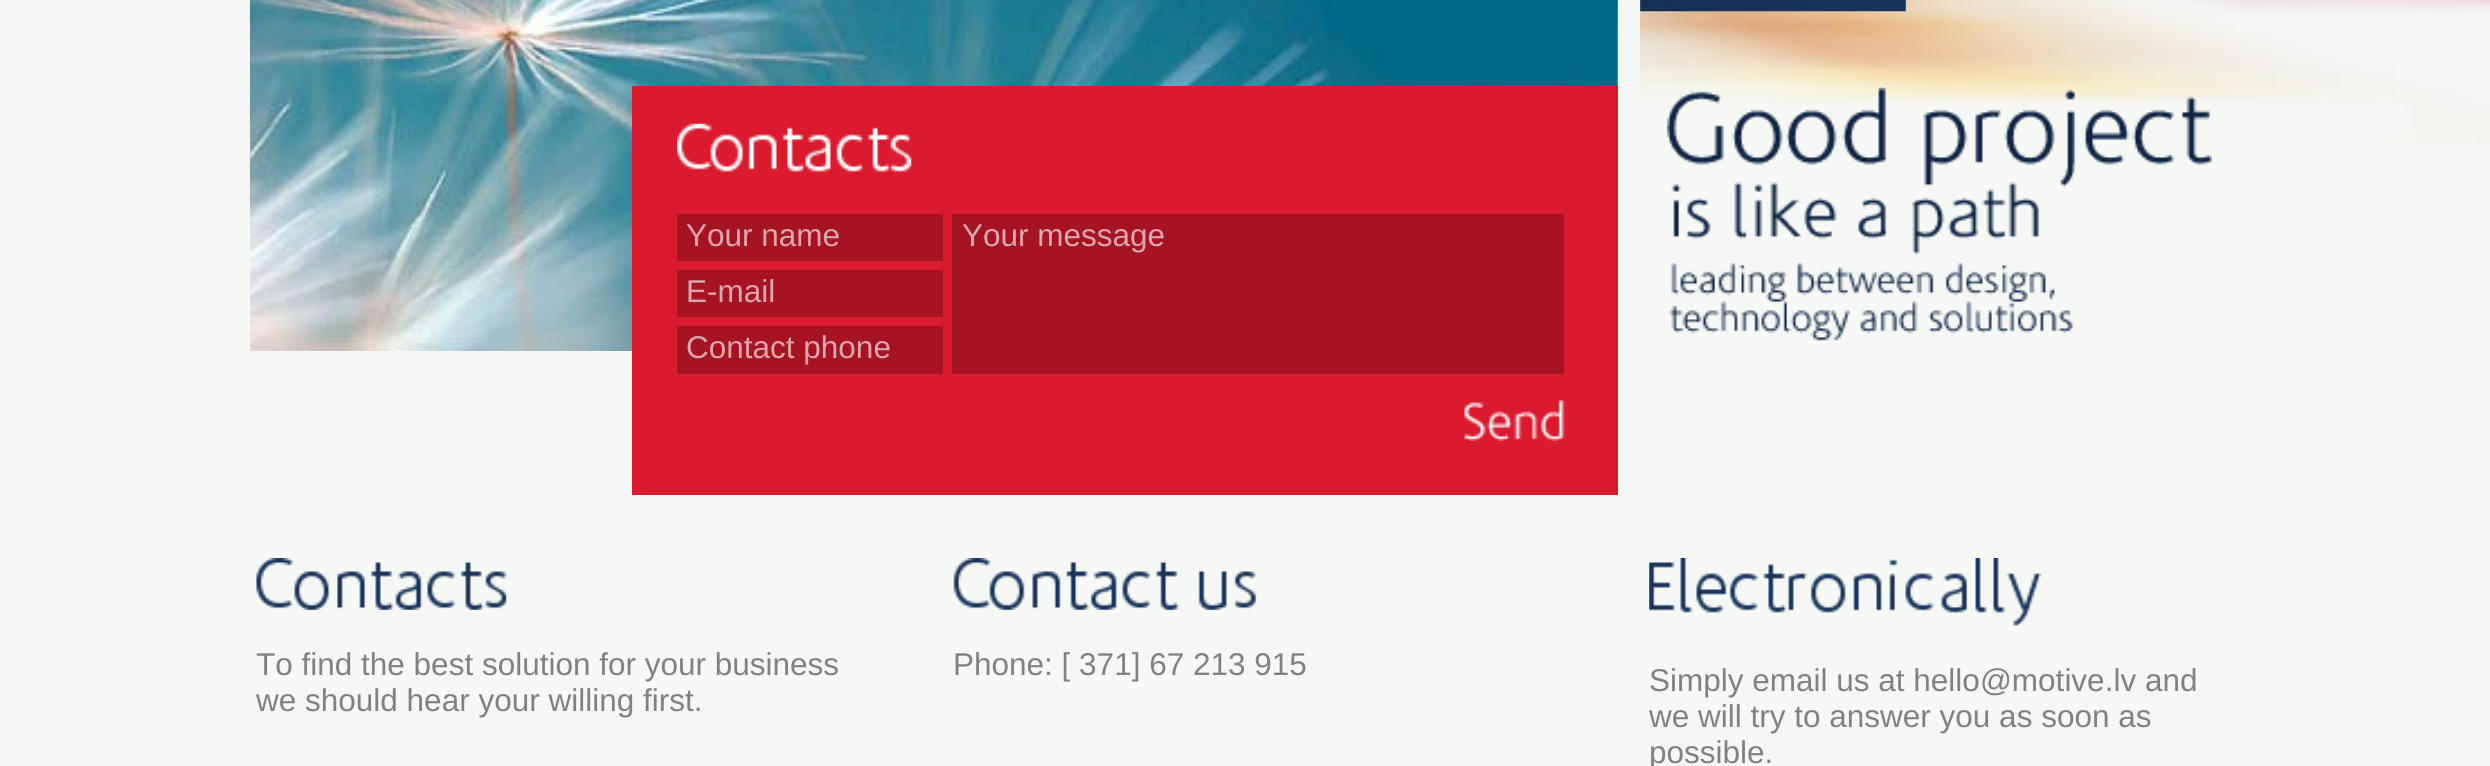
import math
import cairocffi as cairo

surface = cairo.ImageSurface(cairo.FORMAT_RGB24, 2490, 766)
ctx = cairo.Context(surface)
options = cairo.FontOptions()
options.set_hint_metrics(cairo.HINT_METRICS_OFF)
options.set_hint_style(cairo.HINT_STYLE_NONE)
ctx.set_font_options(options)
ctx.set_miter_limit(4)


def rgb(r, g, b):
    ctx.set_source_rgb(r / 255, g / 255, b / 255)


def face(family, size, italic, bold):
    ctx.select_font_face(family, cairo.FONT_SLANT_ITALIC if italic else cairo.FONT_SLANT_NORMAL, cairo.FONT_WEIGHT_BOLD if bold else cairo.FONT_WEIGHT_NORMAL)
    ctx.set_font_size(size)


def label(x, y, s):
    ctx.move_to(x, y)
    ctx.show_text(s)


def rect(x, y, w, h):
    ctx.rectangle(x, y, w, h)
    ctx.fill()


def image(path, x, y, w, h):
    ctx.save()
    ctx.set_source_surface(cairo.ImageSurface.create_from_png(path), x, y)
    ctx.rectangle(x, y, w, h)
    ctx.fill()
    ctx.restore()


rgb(246, 248, 245)
ctx.paint()
image('image0.png', 1617, 0, 873, 144)
rgb(246, 248, 245)
rect(1618, 0, 22, 102)
image('image1.png', 249, 0, 1369, 351)
rgb(218, 26, 47)
rect(632, 86, 986, 409)
image('image2.png', 677, 123, 235, 49)
rgb(166, 20, 36)
rect(677, 214, 266, 47)
face('Liberation Sans', 31.5, 0, 0)
rgb(221, 166, 172)
label(686, 246, 'Your name')
rgb(166, 20, 36)
rect(677, 270, 266, 47)
rgb(221, 166, 172)
label(686, 302, 'E-mail')
rgb(166, 20, 36)
rect(677, 326, 266, 48)
rgb(221, 166, 172)
label(686, 358, 'Contact phone')
rgb(166, 20, 36)
rect(952, 214, 612, 160)
rgb(221, 166, 172)
label(962, 246, 'Your message')
image('image3.png', 1464, 400, 101, 41)
image('image4.png', 1640, 0, 266, 12)
image('image5.png', 1667, 87, 545, 254)
image('image6.png', 256, 558, 251, 52)
rgb(129, 129, 129)
label(256, 675, 'To find the best solution for your business')
label(256, 711, 'we should hear your willing first.')
image('image7.png', 953, 558, 304, 52)
label(953, 675, 'Phone: [ 371] 67 213 915')
image('image8.png', 1649, 558, 392, 68)
label(1649, 691, 'Simply email us at hello@motive.lv and')
label(1649, 727, 'we will try to answer you as soon as')
label(1649, 763, 'possible.')
surface.write_to_png('render.png')
